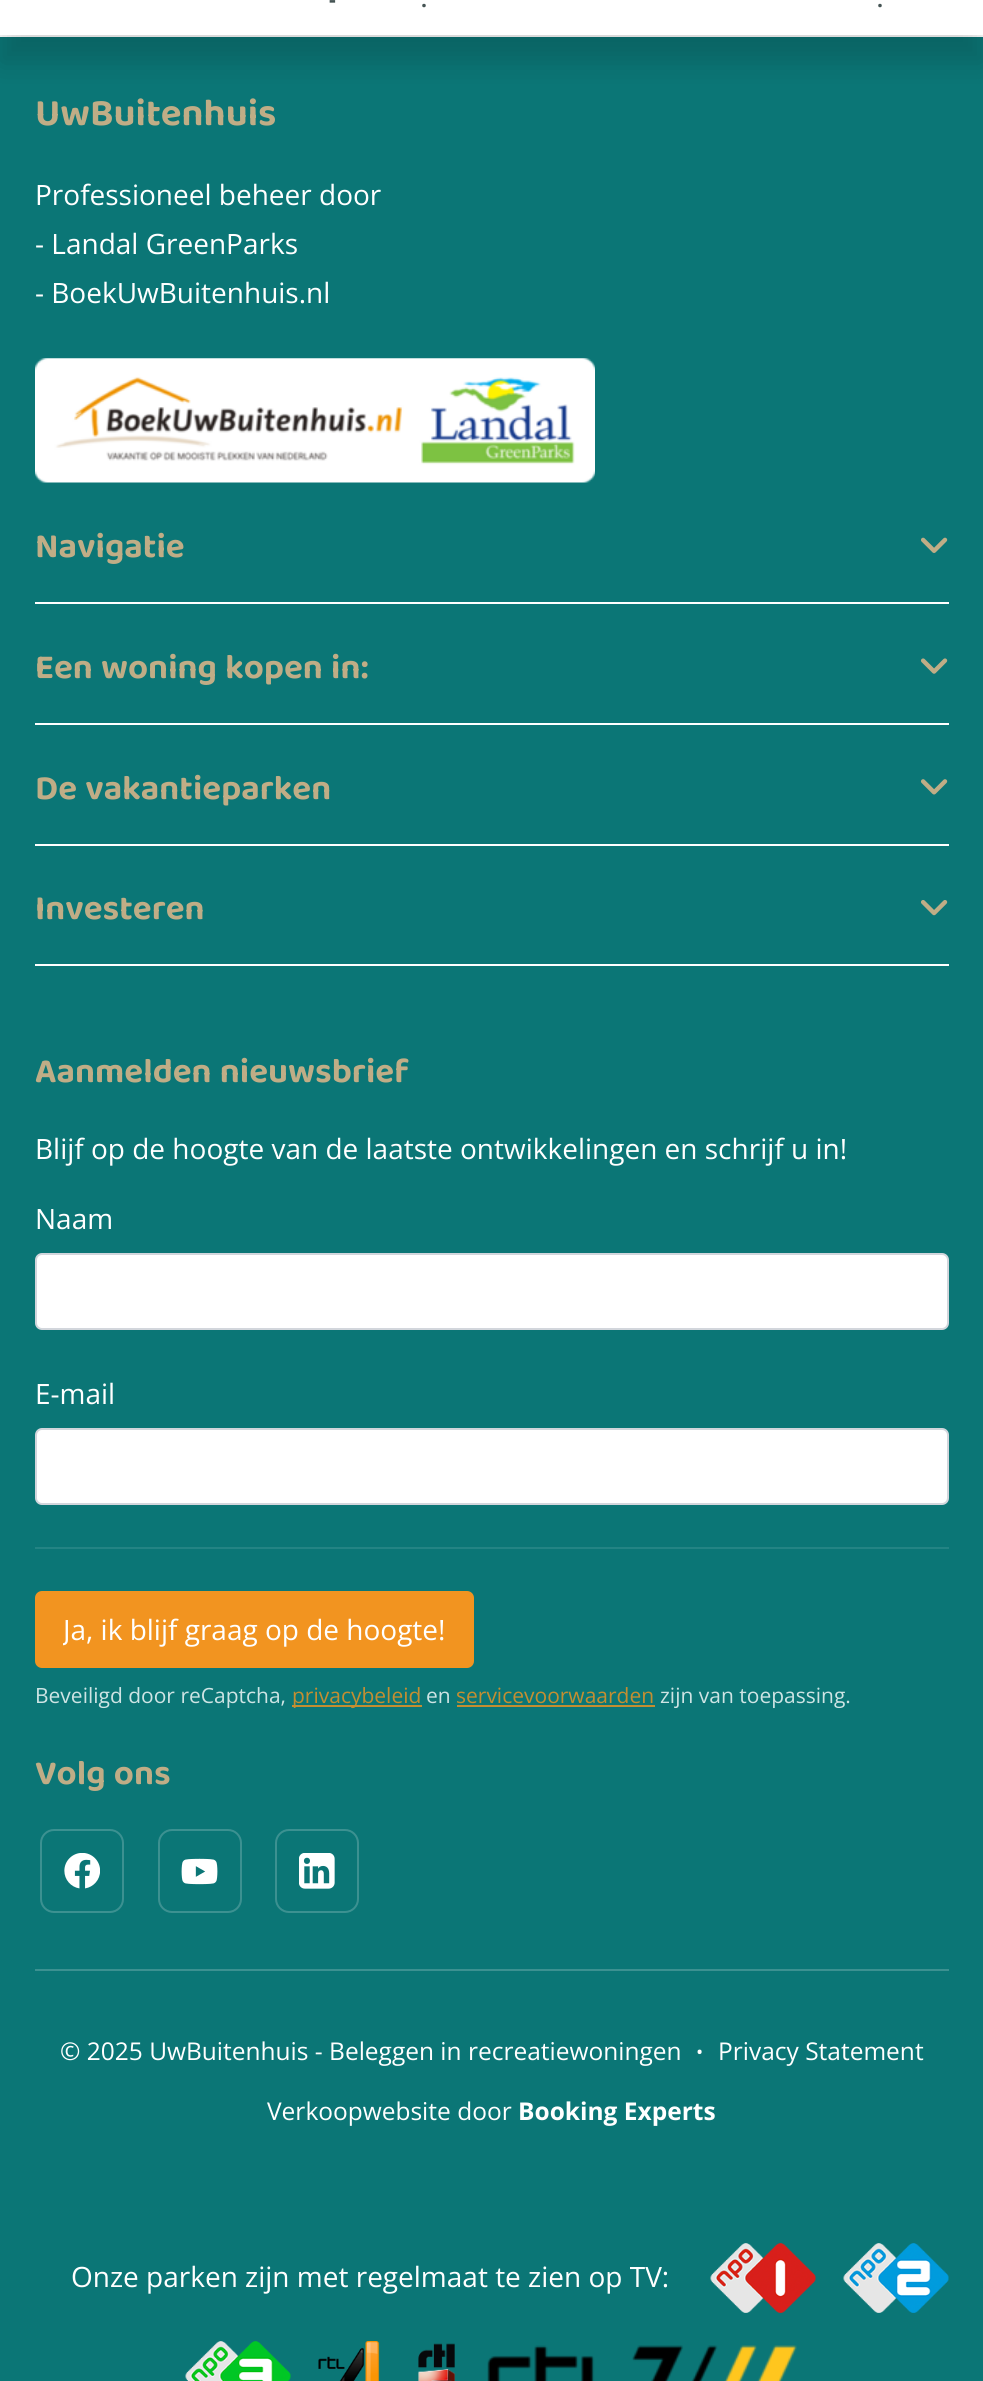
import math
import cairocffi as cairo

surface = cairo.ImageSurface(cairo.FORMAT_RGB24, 983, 2381)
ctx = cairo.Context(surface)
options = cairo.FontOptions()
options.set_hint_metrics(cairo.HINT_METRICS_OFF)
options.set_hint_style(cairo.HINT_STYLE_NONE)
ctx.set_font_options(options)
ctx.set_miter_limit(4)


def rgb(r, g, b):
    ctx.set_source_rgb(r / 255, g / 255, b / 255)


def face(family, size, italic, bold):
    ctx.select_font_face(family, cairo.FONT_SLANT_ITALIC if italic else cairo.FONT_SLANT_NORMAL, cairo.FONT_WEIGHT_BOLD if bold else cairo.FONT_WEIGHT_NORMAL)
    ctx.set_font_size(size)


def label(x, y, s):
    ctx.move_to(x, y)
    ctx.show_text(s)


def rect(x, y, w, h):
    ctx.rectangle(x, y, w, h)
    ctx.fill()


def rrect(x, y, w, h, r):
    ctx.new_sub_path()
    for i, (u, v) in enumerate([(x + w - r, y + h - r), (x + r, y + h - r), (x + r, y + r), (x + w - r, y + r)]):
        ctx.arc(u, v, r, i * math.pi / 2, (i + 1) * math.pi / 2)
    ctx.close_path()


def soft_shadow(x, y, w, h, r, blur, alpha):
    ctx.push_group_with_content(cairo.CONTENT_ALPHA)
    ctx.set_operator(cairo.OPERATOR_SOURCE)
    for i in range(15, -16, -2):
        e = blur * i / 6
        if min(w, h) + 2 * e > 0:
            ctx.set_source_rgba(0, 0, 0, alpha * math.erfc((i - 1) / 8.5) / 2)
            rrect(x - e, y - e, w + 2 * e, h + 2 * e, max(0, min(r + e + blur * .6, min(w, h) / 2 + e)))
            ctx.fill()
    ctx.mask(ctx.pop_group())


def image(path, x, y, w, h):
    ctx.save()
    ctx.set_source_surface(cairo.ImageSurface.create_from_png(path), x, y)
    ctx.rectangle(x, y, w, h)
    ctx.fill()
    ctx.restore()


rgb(255, 255, 255)
ctx.paint()
rgb(11, 118, 118)
rect(0, 37, 983, 2344)
rgb(0, 0, 0)
soft_shadow(0, -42, 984, 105, 0, 14, 0.15)
rgb(255, 255, 255)
rect(0, 0, 983, 35)
face('Open Sans', 21, 0, 1)
rgb(69, 84, 84)
label(329, 7, '-')
label(421, 7, '.')
label(877, 7, '.')
face('Baloo Tamma 2', 38.5, 0, 1)
rgb(192, 173, 134)
label(35, 125, 'UwBuitenhuis')
face('Open Sans', 28, 0, 0)
rgb(255, 255, 255)
label(35, 205, 'Professioneel beheer door')
label(35, 254, '- Landal GreenParks')
label(35, 303, '- BoekUwBuitenhuis.nl')
image('image0.png', 35, 358, 560, 125)
rect(35, 602, 914, 2)
face('Baloo Tamma 2', 35, 0, 1)
rgb(192, 173, 134)
label(35, 557, 'Navigatie')
image('image1.png', 921, 537, 27, 16)
rgb(255, 255, 255)
rect(35, 723, 914, 2)
rgb(192, 173, 134)
label(35, 678, 'Een woning kopen in:')
image('image2.png', 920, 658, 28, 16)
rgb(255, 255, 255)
rect(35, 844, 914, 2)
rgb(192, 173, 134)
label(35, 799, 'De vakantieparken')
image('image3.png', 920, 779, 28, 16)
rgb(255, 255, 255)
rect(35, 964, 914, 2)
rgb(192, 173, 134)
label(35, 919, 'Investeren')
image('image4.png', 921, 900, 27, 16)
label(35, 1082, 'Aanmelden nieuwsbrief')
face('Open Sans', 28, 0, 0)
rgb(255, 255, 255)
label(35, 1159, 'Blijf op de hoogte van de laatste ontwikkelingen en schrijf u in!')
label(35, 1229, 'Naam')
rrect(36, 1254, 912, 75, 6)
ctx.fill_preserve()
rgb(210, 214, 220)
ctx.stroke()
rgb(255, 255, 255)
label(35, 1404, 'E-mail')
rrect(36, 1429, 912, 75, 6)
ctx.fill_preserve()
rgb(210, 214, 220)
ctx.stroke()
rgb(35, 132, 132)
rect(35, 1547, 914, 2)
rgb(242, 148, 32)
rrect(35, 1591, 439, 77, 7)
ctx.fill()
ctx.save()
ctx.rectangle(63, 1608, 383, 42)
ctx.clip()
rgb(255, 255, 255)
label(63, 1640, 'Ja, ik blijf graag op de hoogte!')
ctx.restore()
face('Open Sans', 21, 0, 0)
rgb(206, 228, 228)
label(35, 1703, 'Beveiligd door reCaptcha,')
rgb(196, 142, 49)
rect(292, 1705, 130, 2)
label(292, 1703, 'privacybeleid')
rgb(206, 228, 228)
label(426, 1703, 'en')
rgb(196, 142, 49)
label(456, 1703, 'servicevoorwaarden')
rect(457, 1705, 198, 2)
rgb(206, 228, 228)
label(660, 1703, 'zijn van toepassing.')
face('Baloo Tamma 2', 35, 0, 1)
rgb(192, 173, 134)
label(35, 1784, 'Volg ons')
rrect(41, 1830, 82, 82, 13)
rgb(60, 145, 145)
ctx.stroke()
image('image5.png', 64, 1853, 36, 36)
rrect(159, 1830, 82, 82, 13)
ctx.stroke()
image('image6.png', 181, 1858, 37, 27)
rrect(276, 1830, 82, 82, 13)
ctx.stroke()
image('image7.png', 299, 1853, 36, 36)
rect(35, 1969, 914, 2)
face('Open Sans', 24.5, 0, 0)
rgb(255, 255, 255)
label(60, 2060, '© 2025 UwBuitenhuis - Beleggen in recreatiewoningen')
face('Open Sans', 35, 0, 0)
label(695, 2064, '·')
face('Open Sans', 24.5, 0, 0)
label(718, 2060, 'Privacy Statement')
label(267, 2120, 'Verkoopwebsite door')
face('Open Sans', 24.5, 0, 1)
label(518, 2120, 'Booking Experts')
face('Open Sans', 28, 0, 0)
label(71, 2287, 'Onze parken zijn met regelmaat te zien op TV:')
image('image8.png', 710, 2243, 106, 70)
image('image9.png', 843, 2243, 106, 70)
image('image10.png', 185, 2341, 106, 40)
image('image11.png', 318, 2341, 62, 40)
image('image12.png', 418, 2343, 37, 38)
image('image13.png', 487, 2345, 310, 36)
surface.write_to_png('render.png')
